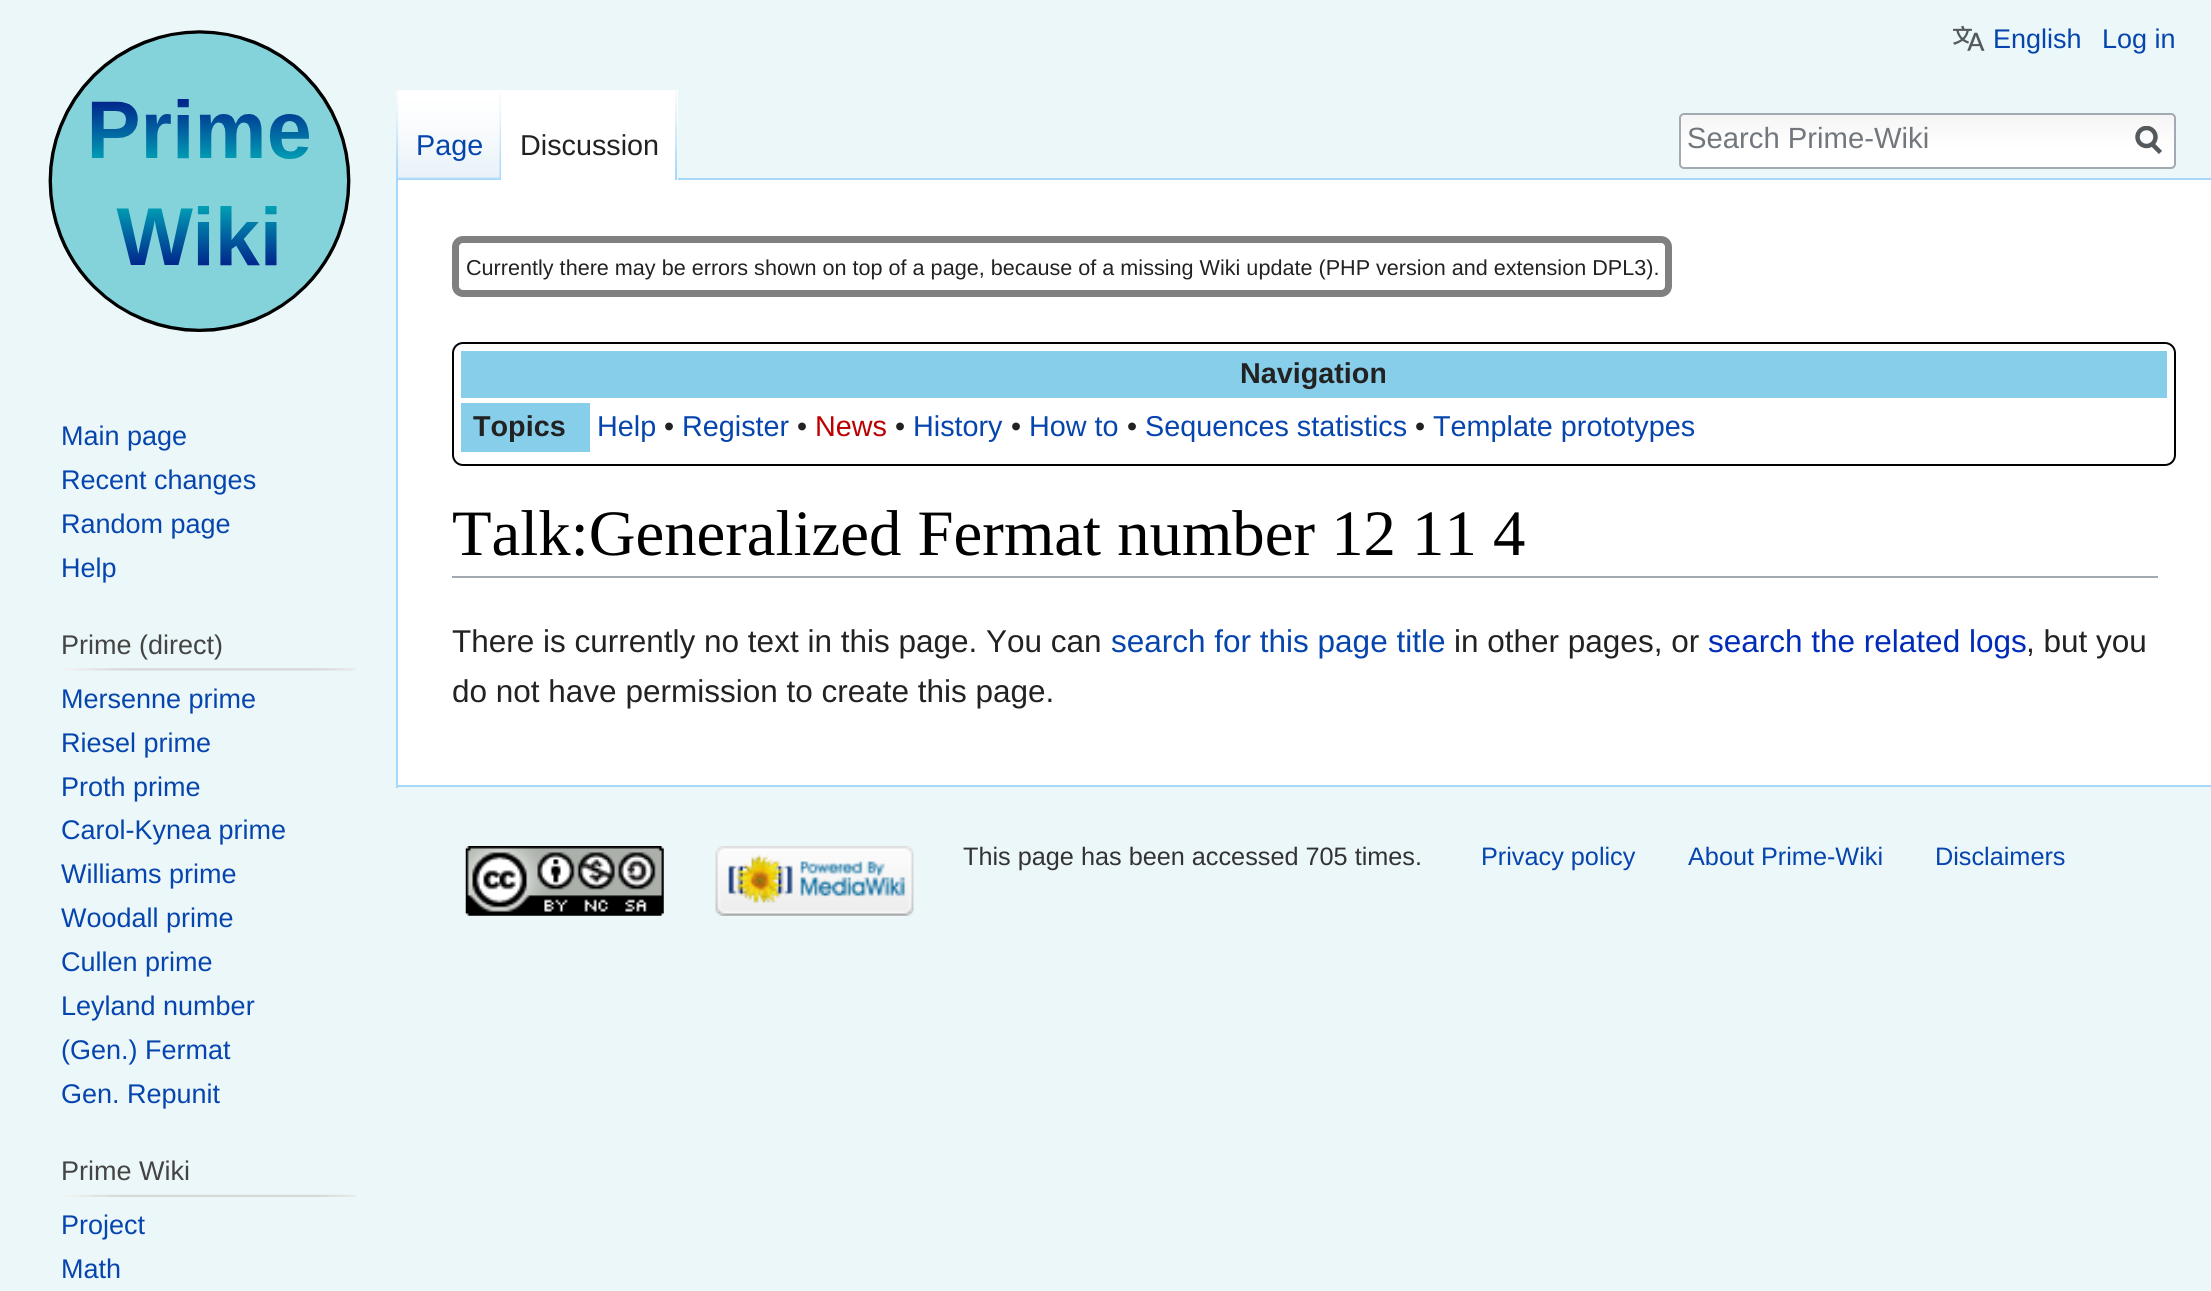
import math
import cairocffi as cairo

surface = cairo.ImageSurface(cairo.FORMAT_RGB24, 2211, 1291)
ctx = cairo.Context(surface)
options = cairo.FontOptions()
options.set_hint_metrics(cairo.HINT_METRICS_OFF)
options.set_hint_style(cairo.HINT_STYLE_NONE)
ctx.set_font_options(options)
ctx.set_miter_limit(4)


def rgb(r, g, b):
    ctx.set_source_rgb(r / 255, g / 255, b / 255)


def face(family, size, italic, bold):
    ctx.select_font_face(family, cairo.FONT_SLANT_ITALIC if italic else cairo.FONT_SLANT_NORMAL, cairo.FONT_WEIGHT_BOLD if bold else cairo.FONT_WEIGHT_NORMAL)
    ctx.set_font_size(size)


def label(x, y, s):
    ctx.move_to(x, y)
    ctx.show_text(s)


def rect(x, y, w, h):
    ctx.rectangle(x, y, w, h)
    ctx.fill()


def rrect(x, y, w, h, r):
    ctx.new_sub_path()
    for i, (u, v) in enumerate([(x + w - r, y + h - r), (x + r, y + h - r), (x + r, y + r), (x + w - r, y + r)]):
        ctx.arc(u, v, r, i * math.pi / 2, (i + 1) * math.pi / 2)
    ctx.close_path()


def image(path, x, y, w, h):
    ctx.save()
    ctx.set_source_surface(cairo.ImageSurface.create_from_png(path), x, y)
    ctx.rectangle(x, y, w, h)
    ctx.fill()
    ctx.restore()


rgb(235, 247, 249)
ctx.paint()
image('image0.png', 1953, 25, 32, 26)
face('Liberation Sans', 27, 0, 0)
rgb(6, 69, 173)
label(1993, 48, 'English')
label(2102, 48, 'Log in')
image('image1.png', 396, 90, 3, 88)
rgb(167, 215, 249)
rect(396, 178, 1815, 2)
image('image2.png', 398, 90, 102, 89)
image('image3.png', 499, 90, 2, 89)
face('Liberation Sans', 28.75, 0, 0)
rgb(6, 69, 173)
label(416, 155, 'Page')
rgb(255, 255, 255)
rect(501, 90, 177, 90)
image('image4.png', 675, 90, 3, 90)
rgb(34, 34, 34)
label(520, 155, 'Discussion')
rgb(255, 255, 255)
rrect(1679, 113, 497, 56, 5)
ctx.fill()
image('image5.png', 1678, 115, 498, 35)
rrect(1680, 114, 495, 54, 4)
rgb(162, 169, 177)
ctx.stroke()
face('Liberation Sans', 29.25, 0, 0)
rgb(114, 119, 125)
label(1687, 148, 'Search Prime-Wiki')
ctx.new_path()
ctx.move_to(2160.5, 152.5)
ctx.line_to(2151.5, 143.5)
rgb(84, 89, 93)
ctx.set_line_width(4.5)
ctx.stroke()
ctx.save()
ctx.rectangle(2135, 126, 27, 29)
ctx.clip()
ctx.arc(2146.5, 137, 9, 0, 2 * math.pi)
ctx.stroke()
ctx.restore()
image('image6.png', 48, 30, 303, 302)
face('Liberation Sans', 27, 0, 0)
rgb(6, 69, 173)
label(61, 445, 'Main page')
label(61, 489, 'Recent changes')
label(61, 533, 'Random page')
label(61, 577, 'Help')
rgb(68, 68, 68)
label(61, 654, 'Prime (direct)')
image('image7.png', 61, 668, 295, 3)
rgb(6, 69, 173)
label(61, 708, 'Mersenne prime')
label(61, 752, 'Riesel prime')
label(61, 796, 'Proth prime')
label(61, 839, 'Carol-Kynea prime')
label(61, 883, 'Williams prime')
label(61, 927, 'Woodall prime')
label(61, 971, 'Cullen prime')
label(61, 1015, 'Leyland number')
label(61, 1059, '(Gen.) Fermat')
label(61, 1103, 'Gen. Repunit')
rgb(68, 68, 68)
label(61, 1180, 'Prime Wiki')
image('image8.png', 61, 1194, 295, 3)
rgb(6, 69, 173)
label(61, 1234, 'Project')
label(61, 1278, 'Math')
rgb(255, 255, 255)
rect(398, 180, 1813, 605)
rgb(167, 215, 249)
rect(396, 785, 1815, 2)
rect(396, 178, 2, 610)
rrect(455.5, 239.5, 1213, 54, 7.5)
rgb(128, 128, 128)
ctx.set_line_width(7)
ctx.stroke()
face('Liberation Sans', 21.6, 0, 0)
rgb(34, 34, 34)
label(466, 275, 'Currently there may be errors shown on top of a page, because of a missing Wiki update (PHP version and extension DPL3).')
rrect(453, 343, 1722, 122, 10)
rgb(0, 0, 0)
ctx.set_line_width(2)
ctx.stroke()
rgb(135, 206, 235)
rect(461, 351, 1706, 47)
face('Liberation Sans', 28.75, 0, 1)
rgb(34, 34, 34)
label(1240, 383, 'Navigation')
rgb(135, 206, 235)
rect(461, 403, 129, 49)
rgb(34, 34, 34)
label(473, 436, 'Topics')
face('Liberation Sans', 28.75, 0, 0)
rgb(6, 69, 173)
label(597, 436, 'Help')
rgb(34, 34, 34)
label(664, 436, '•')
rgb(6, 69, 173)
label(682, 436, 'Register')
rgb(34, 34, 34)
label(797, 436, '•')
rgb(186, 0, 0)
label(815, 436, 'News')
rgb(34, 34, 34)
label(895, 436, '•')
rgb(6, 69, 173)
label(913, 436, 'History')
rgb(34, 34, 34)
label(1011, 436, '•')
rgb(6, 69, 173)
label(1029, 436, 'How to')
rgb(34, 34, 34)
label(1127, 436, '•')
rgb(6, 69, 173)
label(1145, 436, 'Sequences statistics')
rgb(34, 34, 34)
label(1415, 436, '•')
rgb(6, 69, 173)
label(1433, 436, 'Template prototypes')
rgb(162, 169, 177)
rect(452, 576, 1706, 2)
face('Liberation Serif', 64.75, 0, 0)
rgb(0, 0, 0)
label(452, 555, 'Talk:Generalized Fermat number 12 11 4')
face('Liberation Sans', 31.5, 0, 0)
rgb(34, 34, 34)
label(452, 652, 'There is currently no text in this page. You can')
rgb(6, 69, 173)
label(1111, 652, 'search for this page title')
rgb(34, 34, 34)
label(1454, 652, 'in other pages, or')
rgb(0, 43, 184)
label(1708, 652, 'search the related logs')
rgb(34, 34, 34)
label(2026, 652, ', but you')
label(452, 702, 'do not have permission to create this page.')
image('image9.png', 465, 846, 199, 70)
image('image10.png', 715, 846, 199, 70)
face('Liberation Sans', 25.25, 0, 0)
rgb(51, 51, 51)
label(963, 865, 'This page has been accessed 705 times.')
rgb(6, 69, 173)
label(1481, 865, 'Privacy policy')
label(1688, 865, 'About Prime-Wiki')
label(1935, 865, 'Disclaimers')
surface.write_to_png('render.png')
